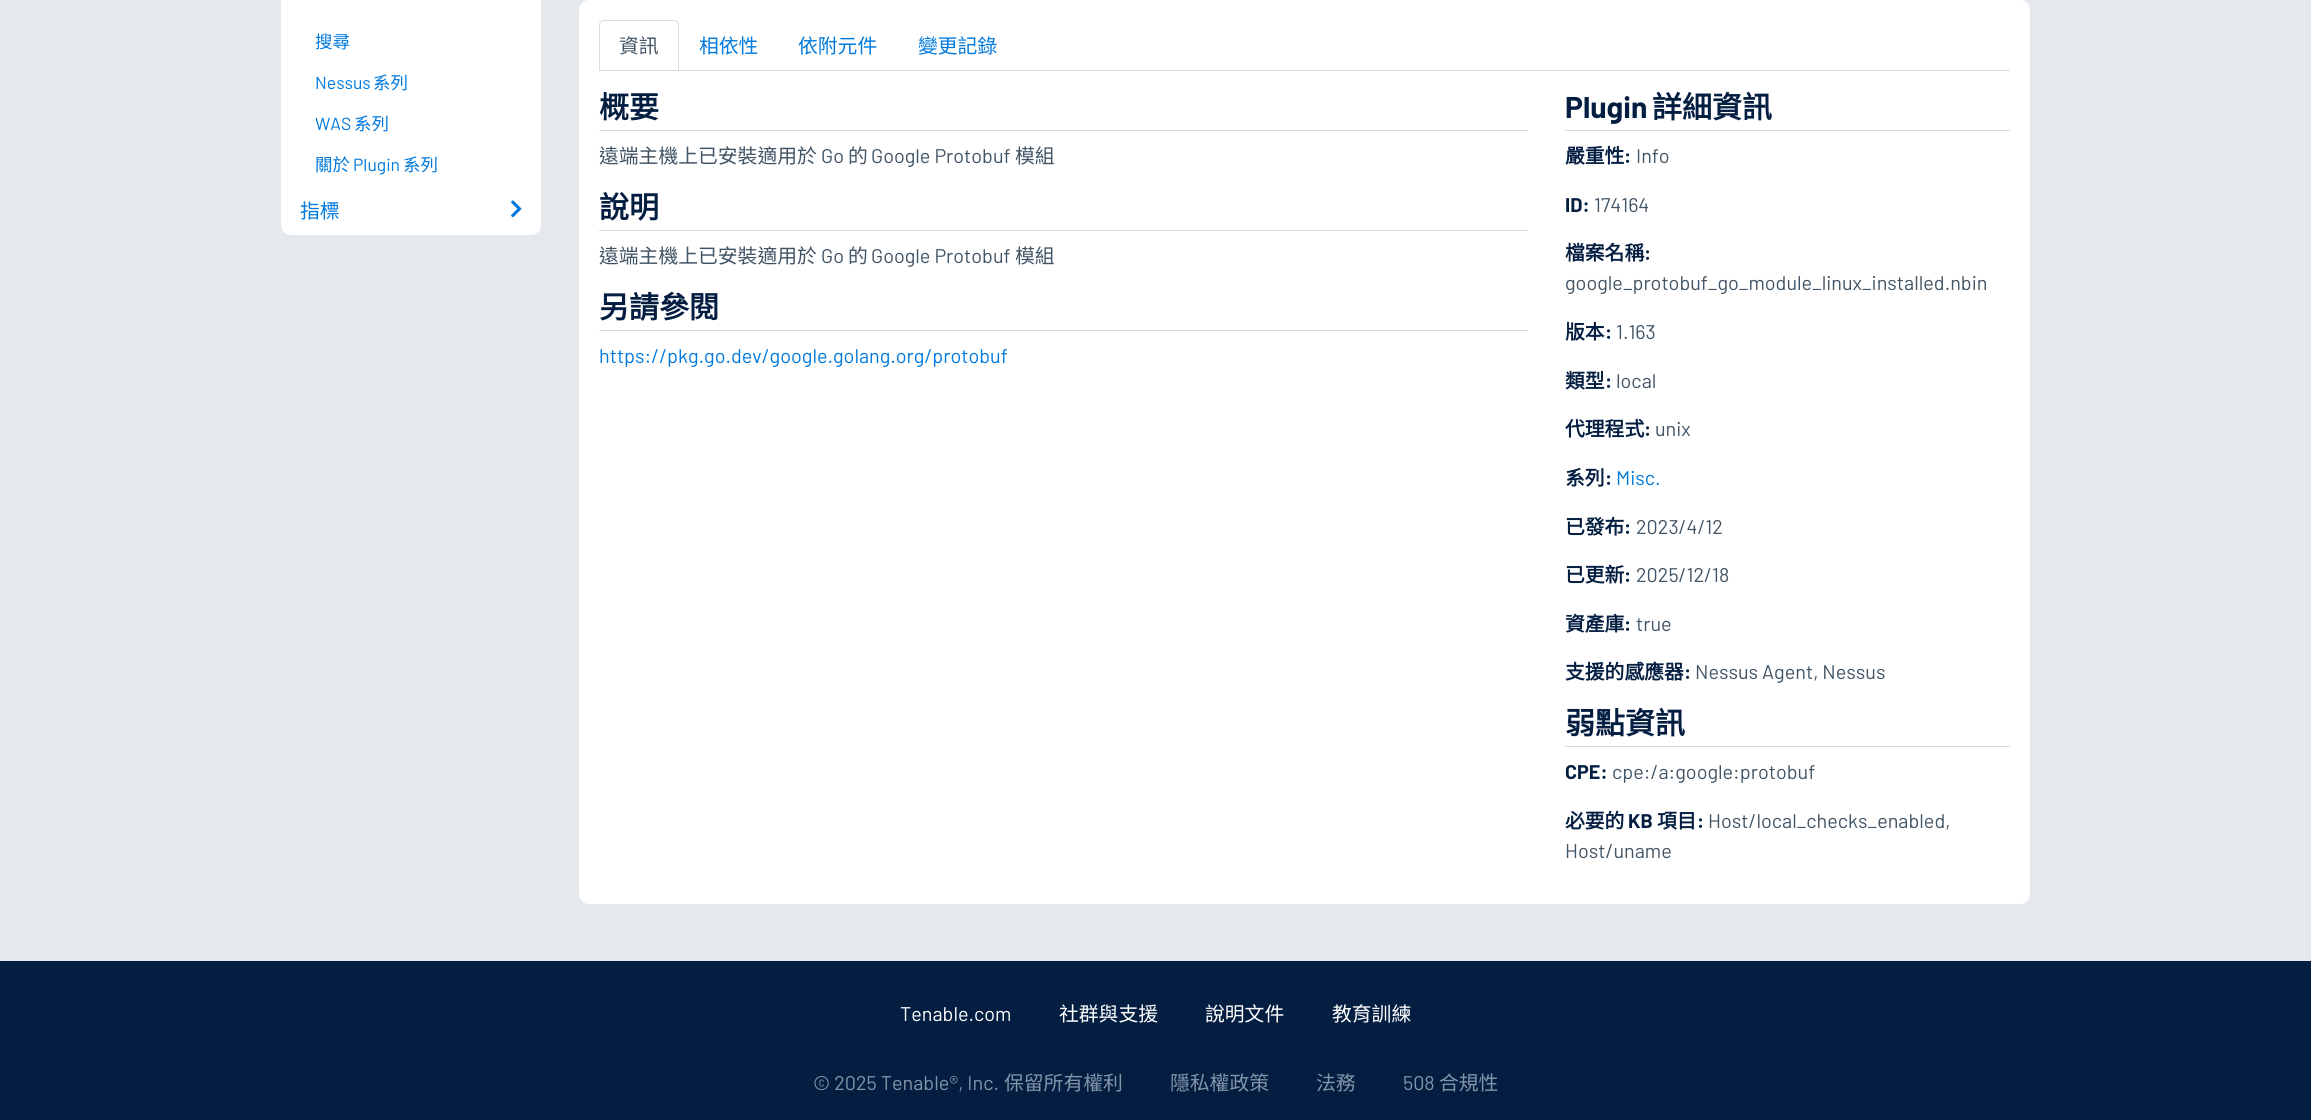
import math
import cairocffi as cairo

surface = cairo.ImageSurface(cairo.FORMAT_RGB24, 2311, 1120)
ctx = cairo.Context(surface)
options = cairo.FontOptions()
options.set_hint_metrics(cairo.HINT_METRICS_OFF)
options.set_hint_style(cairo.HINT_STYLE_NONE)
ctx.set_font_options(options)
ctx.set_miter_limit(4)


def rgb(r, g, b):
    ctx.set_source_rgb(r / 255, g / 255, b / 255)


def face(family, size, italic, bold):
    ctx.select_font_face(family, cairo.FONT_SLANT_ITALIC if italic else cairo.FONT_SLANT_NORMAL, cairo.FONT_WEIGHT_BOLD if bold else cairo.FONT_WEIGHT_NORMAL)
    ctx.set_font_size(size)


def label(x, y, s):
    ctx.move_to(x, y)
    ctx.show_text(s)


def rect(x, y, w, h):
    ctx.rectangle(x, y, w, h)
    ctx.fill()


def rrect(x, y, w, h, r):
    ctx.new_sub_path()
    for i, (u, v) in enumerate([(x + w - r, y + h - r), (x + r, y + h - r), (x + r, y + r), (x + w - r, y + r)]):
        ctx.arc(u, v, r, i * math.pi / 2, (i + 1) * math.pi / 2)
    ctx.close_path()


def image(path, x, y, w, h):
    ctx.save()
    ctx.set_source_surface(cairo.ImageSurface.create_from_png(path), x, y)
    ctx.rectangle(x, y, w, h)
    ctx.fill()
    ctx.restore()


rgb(229, 233, 237)
ctx.paint()
rgb(255, 255, 255)
rrect(281, -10, 260, 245, 10)
ctx.fill()
face('Noto Sans CJK TC', 17.5, 0, 0)
rgb(0, 121, 221)
label(315, 48, '搜尋')
face('Barlow', 17.5, 0, 0)
label(315, 89, 'Nessus')
face('Noto Sans CJK TC', 17.5, 0, 0)
label(373, 89, '系列')
face('Barlow', 17.5, 0, 0)
label(315, 130, 'WAS')
face('Noto Sans CJK TC', 17.5, 0, 0)
label(354, 130, '系列')
label(315, 171, '關於')
face('Barlow', 17.5, 0, 0)
label(353, 171, 'Plugin')
face('Noto Sans CJK TC', 17.5, 0, 0)
label(403, 171, '系列')
face('Noto Sans CJK TC', 19.8, 0, 0)
label(300, 218, '指標')
image('image0.png', 511, 200, 11, 18)
rgb(255, 255, 255)
rrect(579.5, 0.5, 1450, 903, 9.5)
ctx.fill_preserve()
ctx.set_line_width(1)
ctx.stroke()
rgb(217, 219, 224)
rect(679, 70, 1331, 1)
ctx.new_path()
ctx.move_to(604, 20.5)
ctx.line_to(674, 20.5)
ctx.curve_to(676.5, 20.5, 678.5, 22.5, 678.5, 25)
ctx.line_to(678.5, 70.5)
ctx.line_to(599.5, 70.5)
ctx.line_to(599.5, 25)
ctx.curve_to(599.5, 22.5, 601.5, 20.5, 604, 20.5)
ctx.close_path()
ctx.stroke()
rgb(65, 84, 101)
label(619, 53, '資訊')
rgb(0, 121, 221)
label(699, 53, '相依性')
label(798, 53, '依附元件')
label(918, 53, '變更記錄')
rgb(217, 219, 224)
rect(599, 130, 929, 1)
face('Noto Sans CJK TC', 30, 0, 1)
rgb(4, 30, 66)
label(599, 118, '概要')
face('Noto Sans CJK TC', 19.8, 0, 0)
rgb(65, 84, 101)
label(599, 163, '遠端主機上已安裝適用於')
face('Barlow', 19.8, 0, 0)
label(821, 163, 'Go')
face('Noto Sans CJK TC', 19.8, 0, 0)
label(848, 163, '的')
face('Barlow', 19.8, 0, 0)
label(871, 163, 'Google Protobuf')
face('Noto Sans CJK TC', 19.8, 0, 0)
label(1015, 163, '模組')
rgb(217, 219, 224)
rect(599, 230, 929, 1)
face('Noto Sans CJK TC', 30, 0, 1)
rgb(4, 30, 66)
label(599, 218, '說明')
face('Noto Sans CJK TC', 19.8, 0, 0)
rgb(65, 84, 101)
label(599, 263, '遠端主機上已安裝適用於')
face('Barlow', 19.8, 0, 0)
label(821, 263, 'Go')
face('Noto Sans CJK TC', 19.8, 0, 0)
label(848, 263, '的')
face('Barlow', 19.8, 0, 0)
label(871, 263, 'Google Protobuf')
face('Noto Sans CJK TC', 19.8, 0, 0)
label(1015, 263, '模組')
rgb(217, 219, 224)
rect(599, 330, 929, 1)
face('Noto Sans CJK TC', 30, 0, 1)
rgb(4, 30, 66)
label(599, 318, '另請參閱')
face('Barlow', 19.8, 0, 0)
rgb(0, 121, 221)
label(599, 363, 'https://pkg.go.dev/google.golang.org/protobuf')
rgb(217, 219, 224)
rect(1565, 130, 445, 1)
face('Barlow', 30, 0, 1)
rgb(4, 30, 66)
label(1565, 118, 'Plugin')
face('Noto Sans CJK TC', 30, 0, 1)
label(1652, 118, '詳細資訊')
face('Noto Sans CJK TC', 19.8, 0, 1)
label(1565, 163, '嚴重性')
face('Barlow', 19.8, 0, 1)
label(1624, 163, ':')
face('Barlow', 19.8, 0, 0)
rgb(65, 84, 101)
label(1636, 163, 'Info')
face('Barlow', 19.8, 0, 1)
rgb(4, 30, 66)
label(1565, 212, 'ID:')
face('Barlow', 19.8, 0, 0)
rgb(65, 84, 101)
label(1594, 212, '174164')
face('Noto Sans CJK TC', 19.8, 0, 1)
rgb(4, 30, 66)
label(1565, 260, '檔案名稱')
face('Barlow', 19.8, 0, 1)
label(1644, 260, ':')
face('Barlow', 19.8, 0, 0)
rgb(65, 84, 101)
label(1565, 290, 'google_protobuf_go_module_linux_installed.nbin')
face('Noto Sans CJK TC', 19.8, 0, 1)
rgb(4, 30, 66)
label(1565, 339, '版本')
face('Barlow', 19.8, 0, 1)
label(1605, 339, ':')
face('Barlow', 19.8, 0, 0)
rgb(65, 84, 101)
label(1616, 339, '1.163')
face('Noto Sans CJK TC', 19.8, 0, 1)
rgb(4, 30, 66)
label(1565, 388, '類型')
face('Barlow', 19.8, 0, 1)
label(1605, 388, ':')
face('Barlow', 19.8, 0, 0)
rgb(65, 84, 101)
label(1616, 388, 'local')
face('Noto Sans CJK TC', 19.8, 0, 1)
rgb(4, 30, 66)
label(1565, 436, '代理程式')
face('Barlow', 19.8, 0, 1)
label(1644, 436, ':')
face('Barlow', 19.8, 0, 0)
rgb(65, 84, 101)
label(1655, 436, 'unix')
face('Noto Sans CJK TC', 19.8, 0, 1)
rgb(4, 30, 66)
label(1565, 485, '系列')
face('Barlow', 19.8, 0, 1)
label(1605, 485, ':')
face('Barlow', 19.8, 0, 0)
rgb(0, 121, 221)
label(1616, 485, 'Misc.')
face('Noto Sans CJK TC', 19.8, 0, 1)
rgb(4, 30, 66)
label(1565, 534, '已發布')
face('Barlow', 19.8, 0, 1)
label(1624, 534, ':')
face('Barlow', 19.8, 0, 0)
rgb(65, 84, 101)
label(1636, 534, '2023/4/12')
face('Noto Sans CJK TC', 19.8, 0, 1)
rgb(4, 30, 66)
label(1565, 582, '已更新')
face('Barlow', 19.8, 0, 1)
label(1624, 582, ':')
face('Barlow', 19.8, 0, 0)
rgb(65, 84, 101)
label(1636, 582, '2025/12/18')
face('Noto Sans CJK TC', 19.8, 0, 1)
rgb(4, 30, 66)
label(1565, 631, '資產庫')
face('Barlow', 19.8, 0, 1)
label(1624, 631, ':')
face('Barlow', 19.8, 0, 0)
rgb(65, 84, 101)
label(1636, 631, 'true')
face('Noto Sans CJK TC', 19.8, 0, 1)
rgb(4, 30, 66)
label(1565, 679, '支援的感應器')
face('Barlow', 19.8, 0, 1)
label(1684, 679, ':')
face('Barlow', 19.8, 0, 0)
rgb(65, 84, 101)
label(1695, 679, 'Nessus Agent, Nessus')
rgb(217, 219, 224)
rect(1565, 746, 445, 1)
face('Noto Sans CJK TC', 30, 0, 1)
rgb(4, 30, 66)
label(1565, 734, '弱點資訊')
face('Barlow', 19.8, 0, 1)
label(1565, 779, 'CPE:')
face('Barlow', 19.8, 0, 0)
rgb(65, 84, 101)
label(1612, 779, 'cpe:/a:google:protobuf')
face('Noto Sans CJK TC', 19.8, 0, 1)
rgb(4, 30, 66)
label(1565, 828, '必要的')
face('Barlow', 19.8, 0, 1)
label(1628, 828, 'KB')
face('Noto Sans CJK TC', 19.8, 0, 1)
label(1657, 828, '項目')
face('Barlow', 19.8, 0, 1)
label(1697, 828, ':')
face('Barlow', 19.8, 0, 0)
rgb(65, 84, 101)
label(1708, 828, 'Host/local_checks_enabled,')
label(1565, 858, 'Host/uname')
rgb(4, 30, 66)
rect(0, 961, 2311, 159)
rgb(255, 255, 255)
label(900, 1021, 'Tenable.com')
face('Noto Sans CJK TC', 19.8, 0, 0)
label(1059, 1021, '社群與支援')
label(1205, 1021, '說明文件')
label(1332, 1021, '教育訓練')
face('Barlow', 19.8, 0, 0)
rgb(130, 148, 168)
label(813, 1090, '© 2025 Tenable®, Inc.')
face('Noto Sans CJK TC', 19.8, 0, 0)
label(1004, 1090, '保留所有權利')
label(1170, 1090, '隱私權政策')
label(1316, 1090, '法務')
face('Barlow', 19.8, 0, 0)
label(1403, 1090, '508')
face('Noto Sans CJK TC', 19.8, 0, 0)
label(1439, 1090, '合規性')
surface.write_to_png('render.png')
